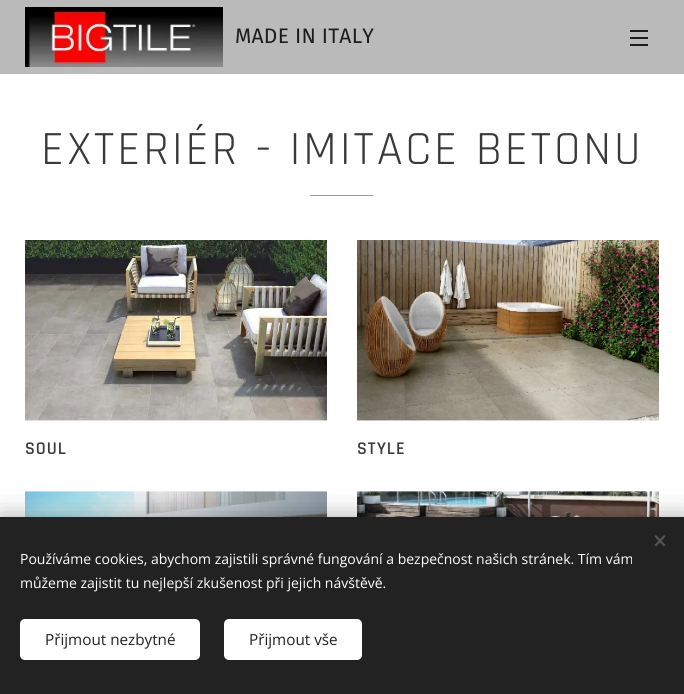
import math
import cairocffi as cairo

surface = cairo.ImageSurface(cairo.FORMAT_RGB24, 684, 694)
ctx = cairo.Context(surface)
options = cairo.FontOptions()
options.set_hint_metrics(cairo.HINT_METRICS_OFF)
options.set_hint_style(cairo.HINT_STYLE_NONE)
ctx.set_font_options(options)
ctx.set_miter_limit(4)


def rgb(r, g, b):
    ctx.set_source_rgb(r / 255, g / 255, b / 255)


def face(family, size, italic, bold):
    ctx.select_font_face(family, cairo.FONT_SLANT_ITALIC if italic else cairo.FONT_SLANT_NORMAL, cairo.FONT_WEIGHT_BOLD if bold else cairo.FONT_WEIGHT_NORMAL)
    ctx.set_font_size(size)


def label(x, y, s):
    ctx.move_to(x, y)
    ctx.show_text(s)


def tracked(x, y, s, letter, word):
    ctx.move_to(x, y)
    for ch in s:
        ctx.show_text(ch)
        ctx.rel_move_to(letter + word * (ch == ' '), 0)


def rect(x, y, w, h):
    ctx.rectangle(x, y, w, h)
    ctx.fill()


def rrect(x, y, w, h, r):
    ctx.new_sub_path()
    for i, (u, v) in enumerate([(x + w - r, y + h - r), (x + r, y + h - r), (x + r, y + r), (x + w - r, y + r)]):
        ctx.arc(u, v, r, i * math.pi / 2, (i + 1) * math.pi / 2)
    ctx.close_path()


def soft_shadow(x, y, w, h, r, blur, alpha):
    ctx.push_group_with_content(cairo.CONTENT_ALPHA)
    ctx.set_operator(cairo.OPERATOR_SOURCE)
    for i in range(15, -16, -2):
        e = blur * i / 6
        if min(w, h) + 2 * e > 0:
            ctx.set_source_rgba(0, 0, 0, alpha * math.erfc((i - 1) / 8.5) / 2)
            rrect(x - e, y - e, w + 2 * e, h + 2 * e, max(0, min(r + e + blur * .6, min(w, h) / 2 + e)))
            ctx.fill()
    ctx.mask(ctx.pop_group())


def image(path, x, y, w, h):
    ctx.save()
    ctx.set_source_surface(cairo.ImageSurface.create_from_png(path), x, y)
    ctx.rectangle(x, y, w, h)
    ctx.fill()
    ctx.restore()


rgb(255, 255, 255)
ctx.paint()
rgb(186, 186, 186)
rect(0, 0, 684, 74)
image('image0.png', 25, 7, 198, 60)
face('Fira Sans', 21, 0, 0)
rgb(28, 28, 28)
tracked(235, 43, 'MADE IN ITALY', 0.25, 0)
rect(630, 37, 18, 2)
rect(630, 30, 18, 2)
rect(630, 44, 18, 2)
face('Rajdhani', 48, 0, 0)
rgb(57, 57, 57)
tracked(41, 164, 'EXTERIÉR - IMITACE BETONU', 2.9, 0)
rgb(157, 157, 157)
rect(310, 195, 63, 1)
image('image1.png', 25, 240, 302, 181)
face('Rajdhani SemiBold', 18, 0, 0)
rgb(57, 57, 57)
tracked(25, 454, 'SOUL', 1, 0)
image('image2.png', 357, 240, 302, 181)
tracked(357, 454, 'STYLE', 1, 0)
image('image3.png', 25, 491, 302, 26)
image('image4.png', 357, 491, 302, 26)
rgb(0, 0, 0)
soft_shadow(0, 517, 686, 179, 0, 12.5, 0.33)
rgb(34, 34, 34)
rect(0, 517, 684, 177)
rgb(85, 85, 85)
ctx.new_path()
ctx.move_to(654.5, 545)
ctx.line_to(664, 535)
ctx.line_to(665.5, 536.5)
ctx.line_to(656, 546.5)
ctx.close_path()
ctx.fill()
ctx.new_path()
ctx.move_to(656, 535)
ctx.line_to(665.5, 545)
ctx.line_to(664, 546.5)
ctx.line_to(654.5, 536.5)
ctx.close_path()
ctx.fill()
face('Open Sans', 14, 0, 0)
rgb(255, 255, 255)
label(20, 564, 'Používáme cookies, abychom zajistili správné fungování a bezpečnost našich stránek. Tím vám')
label(20, 588, 'můžeme zajistit tu nejlepší zkušenost při jejich návštěvě.')
rrect(20, 619, 180, 41, 5)
ctx.fill()
face('Open Sans', 15.25, 0, 0)
rgb(34, 34, 34)
label(45, 645, 'Přijmout nezbytné')
rgb(255, 255, 255)
rrect(224, 619, 138, 41, 5)
ctx.fill()
rgb(34, 34, 34)
label(249, 645, 'Přijmout vše')
surface.write_to_png('render.png')
